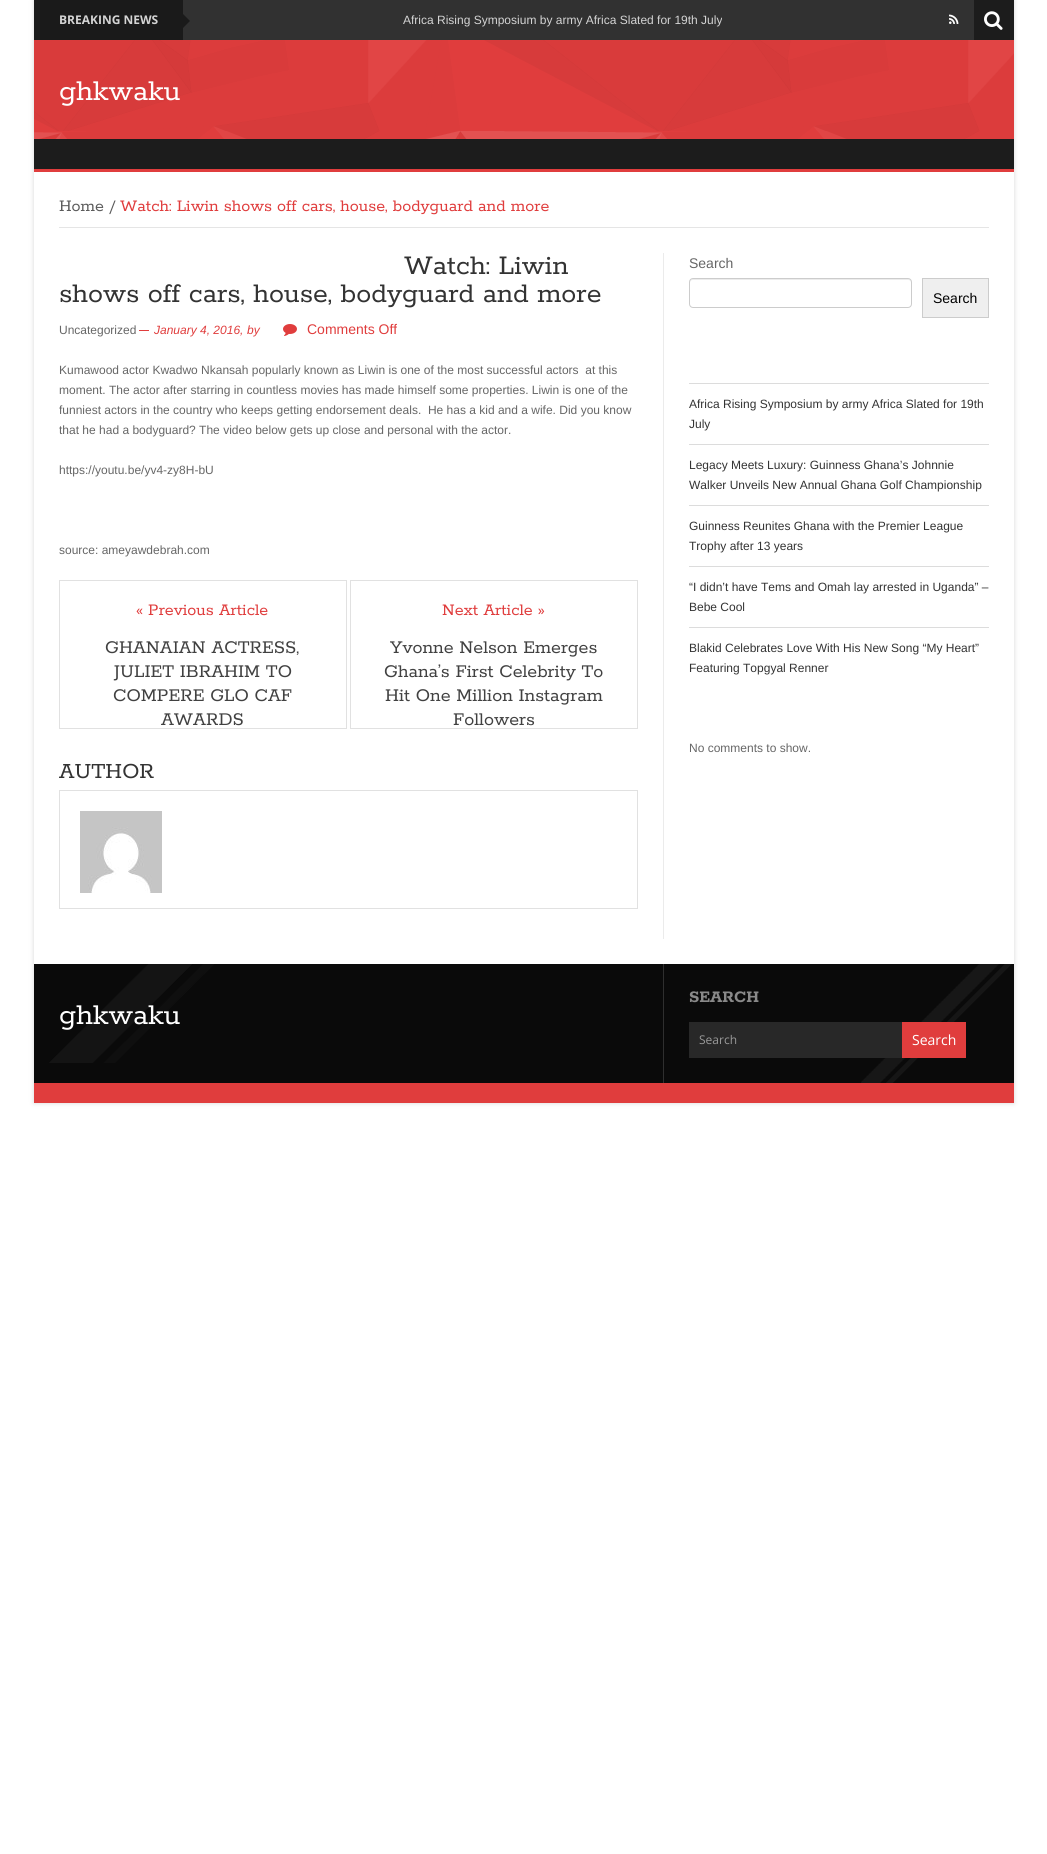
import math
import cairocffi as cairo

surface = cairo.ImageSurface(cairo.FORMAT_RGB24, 1047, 1854)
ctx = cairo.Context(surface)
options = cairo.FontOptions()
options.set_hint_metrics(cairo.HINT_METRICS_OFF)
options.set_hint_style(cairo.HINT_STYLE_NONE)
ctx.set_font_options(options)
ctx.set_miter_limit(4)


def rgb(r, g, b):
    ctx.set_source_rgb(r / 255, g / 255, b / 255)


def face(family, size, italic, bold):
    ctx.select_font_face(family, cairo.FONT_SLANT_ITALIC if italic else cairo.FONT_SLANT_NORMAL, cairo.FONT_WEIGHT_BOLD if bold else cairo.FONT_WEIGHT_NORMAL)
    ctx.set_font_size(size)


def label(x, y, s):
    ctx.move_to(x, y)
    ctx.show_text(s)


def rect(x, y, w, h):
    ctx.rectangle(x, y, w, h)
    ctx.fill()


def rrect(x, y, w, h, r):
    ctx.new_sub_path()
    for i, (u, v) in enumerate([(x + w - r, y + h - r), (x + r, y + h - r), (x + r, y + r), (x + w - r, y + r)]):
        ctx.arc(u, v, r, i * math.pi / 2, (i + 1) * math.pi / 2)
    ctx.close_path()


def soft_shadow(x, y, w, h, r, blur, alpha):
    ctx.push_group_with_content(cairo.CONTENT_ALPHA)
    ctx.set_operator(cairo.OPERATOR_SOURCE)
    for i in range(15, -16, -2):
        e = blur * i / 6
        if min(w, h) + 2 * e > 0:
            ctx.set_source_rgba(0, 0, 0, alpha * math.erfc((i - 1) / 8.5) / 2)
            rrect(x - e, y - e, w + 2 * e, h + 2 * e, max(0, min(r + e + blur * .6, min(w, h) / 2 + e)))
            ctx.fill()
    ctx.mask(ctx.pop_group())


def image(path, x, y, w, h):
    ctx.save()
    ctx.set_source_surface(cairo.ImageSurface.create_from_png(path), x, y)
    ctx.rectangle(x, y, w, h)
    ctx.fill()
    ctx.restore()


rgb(255, 255, 255)
ctx.paint()
ctx.save()
ctx.set_fill_rule(cairo.FILL_RULE_EVEN_ODD)
ctx.new_path()
ctx.move_to(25, 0)
ctx.line_to(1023, 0)
ctx.line_to(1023, 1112)
ctx.line_to(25, 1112)
ctx.close_path()
ctx.move_to(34, 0)
ctx.line_to(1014, 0)
ctx.line_to(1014, 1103)
ctx.line_to(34, 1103)
ctx.close_path()
ctx.clip()
rgb(202, 202, 202)
soft_shadow(34, 0, 980, 1103, 0, 2.5, 0.75)
ctx.restore()
rgb(49, 49, 49)
rect(183, 0, 791, 40)
rgb(26, 26, 26)
rect(34, 0, 149, 40)
face('Open Sans', 12, 0, 1)
rgb(212, 212, 212)
label(59, 24, 'BREAKING NEWS')
rgb(26, 26, 26)
ctx.new_path()
ctx.move_to(183, 28)
ctx.line_to(183, 14)
ctx.line_to(190, 21)
ctx.close_path()
ctx.fill()
face('Liberation Sans', 12, 0, 0)
rgb(212, 212, 212)
label(403, 24, 'Africa Rising Symposium by army Africa Slated for 19th July')
image('image0.png', 949, 14, 10, 10)
rgb(28, 28, 28)
rect(974, 0, 40, 40)
image('image1.png', 984, 11, 19, 19)
rgb(224, 61, 61)
rect(34, 40, 980, 99)
image('image2.png', 34, 40, 980, 99)
face('Rokkitt', 32, 0, 0)
rgb(255, 255, 255)
label(59, 100, 'ghkwaku')
rgb(28, 28, 28)
rect(34, 139, 980, 30)
rgb(224, 61, 61)
rect(34, 169, 980, 3)
rgb(229, 229, 229)
rect(59, 227, 930, 1)
face('Rokkitt', 18, 0, 0)
rgb(91, 91, 91)
label(59, 211, 'Home /')
rgb(224, 61, 61)
label(120, 211, 'Watch: Liwin shows off cars, house, bodyguard and more')
rgb(235, 235, 235)
rect(663, 253, 1, 686)
face('Rokkitt', 30, 0, 0)
rgb(51, 51, 51)
label(404, 274, 'Watch: Liwin')
label(59, 302, 'shows off cars, house, bodyguard and more')
face('Liberation Sans', 12, 0, 0)
rgb(102, 102, 102)
label(59, 334, 'Uncategorized')
rgb(224, 61, 61)
rect(139, 330, 10, 1)
face('Liberation Sans', 12, 1, 0)
label(154, 334, 'January 4, 2016,')
label(247, 334, 'by')
image('image3.png', 283, 324, 14, 12)
face('Liberation Sans', 14, 0, 0)
label(307, 334, 'Comments Off')
face('Liberation Sans', 12, 0, 0)
rgb(102, 102, 102)
label(59, 374, 'Kumawood actor Kwadwo Nkansah popularly known as Liwin is one of the most successful actors  at this')
label(59, 394, 'moment. The actor after starring in countless movies has made himself some properties. Liwin is one of the')
label(59, 414, 'funniest actors in the country who keeps getting endorsement deals.  He has a kid and a wife. Did you know')
label(59, 434, 'that he had a bodyguard? The video below gets up close and personal with the actor.')
label(59, 474, 'https://youtu.be/yv4-zy8H-bU')
label(59, 554, 'source: ameyawdebrah.com')
ctx.rectangle(59.5, 580.5, 287, 148)
rgb(225, 225, 225)
ctx.set_line_width(1)
ctx.stroke()
face('Rokkitt', 18, 0, 0)
rgb(224, 61, 61)
label(136, 615, '« Previous Article')
face('Rokkitt', 20, 0, 0)
rgb(65, 65, 65)
label(105, 653, 'GHANAIAN ACTRESS,')
label(114, 677, 'JULIET IBRAHIM TO')
label(113, 701, 'COMPERE GLO CAF')
label(161, 725, 'AWARDS')
ctx.rectangle(350.5, 580.5, 287, 148)
rgb(225, 225, 225)
ctx.stroke()
face('Rokkitt', 18, 0, 0)
rgb(224, 61, 61)
label(442, 615, 'Next Article »')
face('Rokkitt', 20, 0, 0)
rgb(65, 65, 65)
label(390, 653, 'Yvonne Nelson Emerges')
label(384, 677, 'Ghana’s First Celebrity To')
label(385, 701, 'Hit One Million Instagram')
label(453, 725, 'Followers')
face('Rokkitt', 24, 0, 0)
rgb(51, 51, 51)
label(59, 778, 'AUTHOR')
ctx.rectangle(59.5, 790.5, 578, 118)
rgb(225, 225, 225)
ctx.stroke()
image('image4.png', 80, 811, 82, 82)
face('Liberation Sans', 14, 0, 0)
rgb(102, 102, 102)
label(689, 268, 'Search')
rgb(236, 236, 236)
ctx.new_path()
ctx.move_to(693, 280)
ctx.line_to(908, 280)
ctx.curve_to(910, 280, 911, 281, 911, 283)
ctx.line_to(911, 282)
ctx.curve_to(911, 280, 910, 279, 908, 279)
ctx.line_to(693, 279)
ctx.curve_to(691, 279, 690, 280, 690, 282)
ctx.line_to(690, 283)
ctx.curve_to(690, 281, 691, 280, 693, 280)
ctx.close_path()
ctx.fill()
rrect(689.5, 278.5, 222, 29, 3.5)
rgb(204, 204, 204)
ctx.stroke()
rgb(239, 239, 239)
ctx.rectangle(922.5, 278.5, 66, 39)
ctx.fill_preserve()
rgb(204, 204, 204)
ctx.stroke()
rgb(0, 0, 0)
label(933, 303, 'Search')
rgb(220, 220, 220)
rect(689, 383, 300, 1)
face('Liberation Sans', 12, 0, 0)
rgb(51, 51, 51)
label(689, 408, 'Africa Rising Symposium by army Africa Slated for 19th')
label(689, 428, 'July')
rgb(220, 220, 220)
rect(689, 444, 300, 1)
rgb(51, 51, 51)
label(689, 469, 'Legacy Meets Luxury: Guinness Ghana’s Johnnie')
label(689, 489, 'Walker Unveils New Annual Ghana Golf Championship')
rgb(220, 220, 220)
rect(689, 505, 300, 1)
rgb(51, 51, 51)
label(689, 530, 'Guinness Reunites Ghana with the Premier League')
label(689, 550, 'Trophy after 13 years')
rgb(220, 220, 220)
rect(689, 566, 300, 1)
rgb(51, 51, 51)
label(689, 591, '“I didn’t have Tems and Omah lay arrested in Uganda” –')
label(689, 611, 'Bebe Cool')
rgb(220, 220, 220)
rect(689, 627, 300, 1)
rgb(51, 51, 51)
label(689, 652, 'Blakid Celebrates Love With His New Song “My Heart”')
label(689, 672, 'Featuring Topgyal Renner')
rgb(102, 102, 102)
label(689, 752, 'No comments to show.')
rgb(10, 10, 10)
rect(34, 964, 980, 119)
rgb(47, 47, 47)
rect(663, 964, 1, 119)
image('image5.png', 49, 964, 165, 99)
face('Rokkitt', 32, 0, 0)
rgb(255, 255, 255)
label(59, 1024, 'ghkwaku')
image('image6.png', 861, 964, 151, 119)
face('Rokkitt', 18, 0, 1)
rgb(137, 137, 137)
label(689, 1002, 'SEARCH')
rgb(40, 40, 40)
rect(689, 1022, 213, 36)
face('Open Sans', 12, 0, 0)
rgb(153, 153, 153)
label(699, 1044, 'Search')
rgb(224, 61, 61)
rect(902, 1022, 64, 36)
face('Open Sans', 14, 0, 0)
rgb(255, 255, 255)
label(912, 1045, 'Search')
rgb(224, 61, 61)
rect(34, 1083, 980, 20)
surface.write_to_png('render.png')
